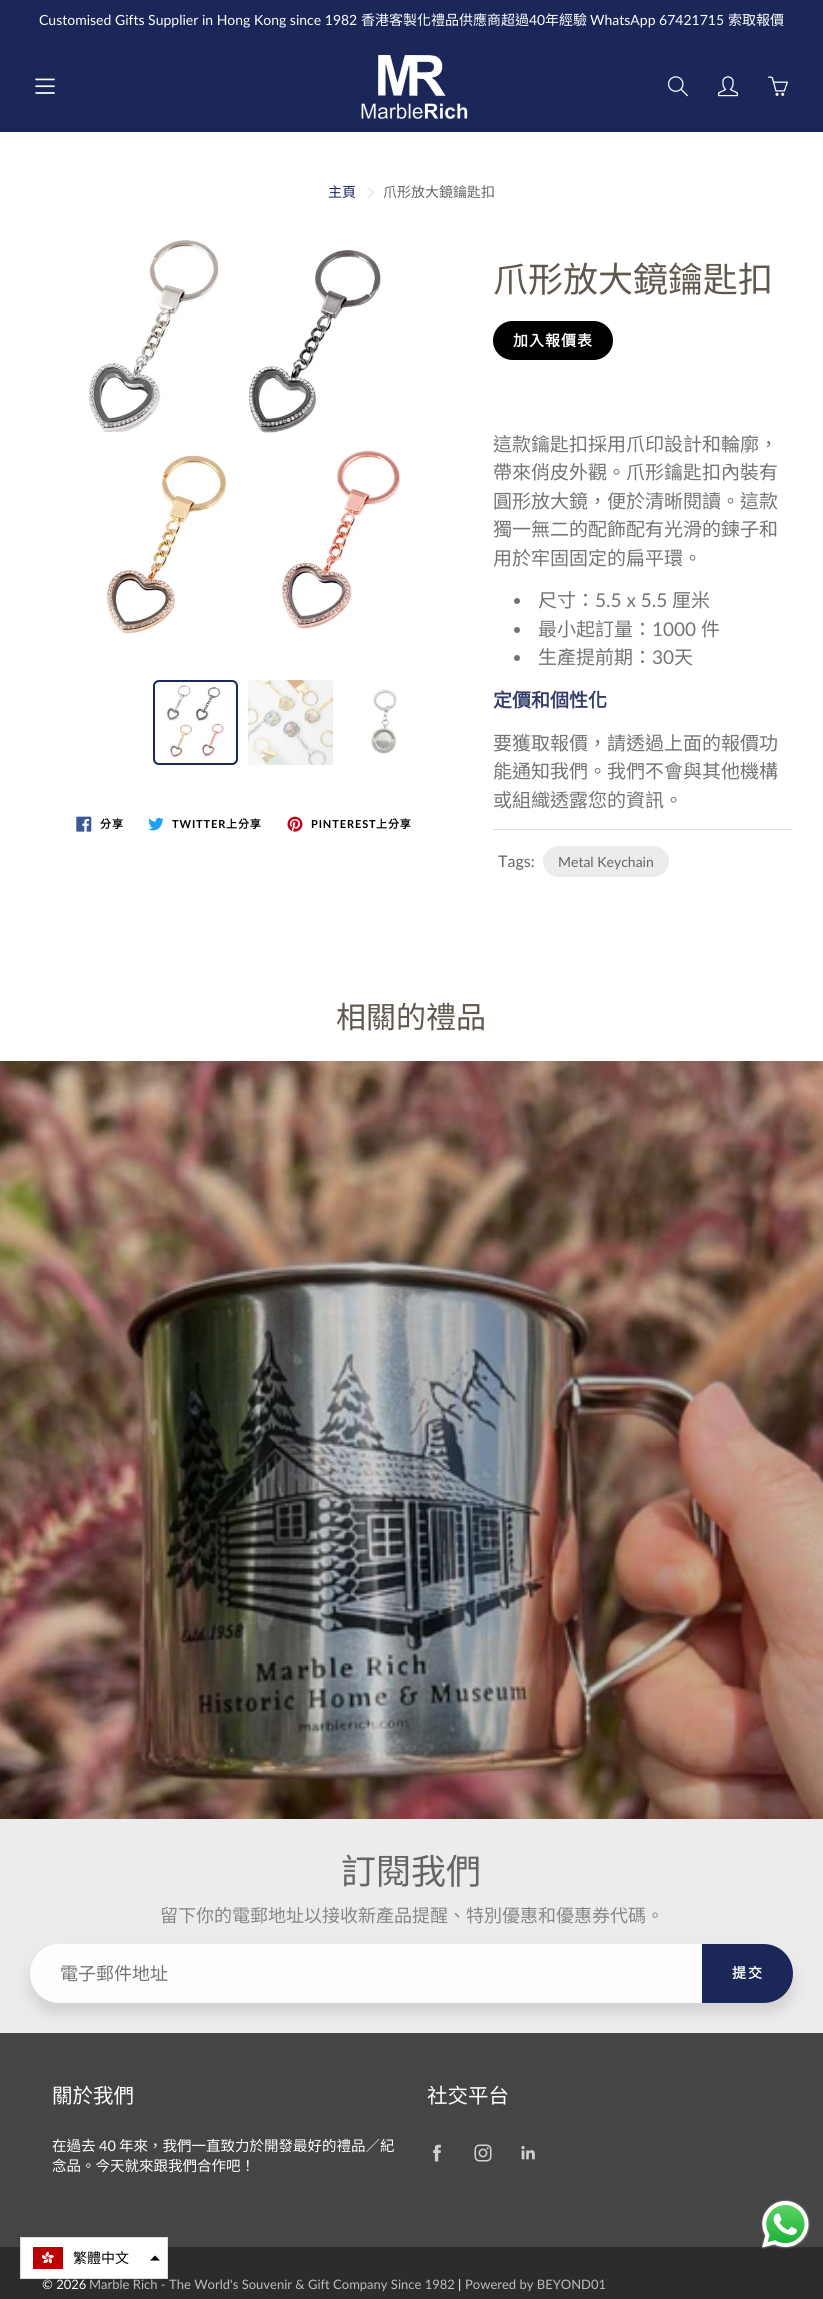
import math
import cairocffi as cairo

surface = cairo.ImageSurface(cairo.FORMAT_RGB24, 823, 2299)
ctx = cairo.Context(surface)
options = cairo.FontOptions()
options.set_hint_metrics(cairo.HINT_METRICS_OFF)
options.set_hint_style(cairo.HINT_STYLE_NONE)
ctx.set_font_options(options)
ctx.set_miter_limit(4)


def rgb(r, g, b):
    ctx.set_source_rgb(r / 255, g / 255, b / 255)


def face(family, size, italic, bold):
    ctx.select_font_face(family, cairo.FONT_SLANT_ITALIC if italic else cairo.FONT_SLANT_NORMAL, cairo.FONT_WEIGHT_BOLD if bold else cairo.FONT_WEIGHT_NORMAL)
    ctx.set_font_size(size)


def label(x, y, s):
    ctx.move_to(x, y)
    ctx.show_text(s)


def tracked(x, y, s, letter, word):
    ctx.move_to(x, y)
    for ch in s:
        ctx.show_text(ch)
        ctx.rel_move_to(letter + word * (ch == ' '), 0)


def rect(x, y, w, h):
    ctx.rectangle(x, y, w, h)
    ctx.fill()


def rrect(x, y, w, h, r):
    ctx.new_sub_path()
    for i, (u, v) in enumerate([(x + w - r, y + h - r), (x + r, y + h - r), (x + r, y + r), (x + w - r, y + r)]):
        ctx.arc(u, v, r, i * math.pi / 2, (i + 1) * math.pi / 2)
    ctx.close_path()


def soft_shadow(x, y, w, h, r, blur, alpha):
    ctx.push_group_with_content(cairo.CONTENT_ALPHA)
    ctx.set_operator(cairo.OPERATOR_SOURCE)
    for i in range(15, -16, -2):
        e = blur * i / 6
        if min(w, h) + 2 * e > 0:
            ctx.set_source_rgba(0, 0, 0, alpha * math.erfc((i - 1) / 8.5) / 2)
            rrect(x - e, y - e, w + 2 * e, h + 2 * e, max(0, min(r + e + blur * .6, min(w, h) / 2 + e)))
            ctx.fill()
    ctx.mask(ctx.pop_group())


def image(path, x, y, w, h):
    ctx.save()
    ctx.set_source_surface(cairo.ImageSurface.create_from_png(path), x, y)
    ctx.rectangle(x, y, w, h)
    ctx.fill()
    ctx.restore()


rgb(255, 255, 255)
ctx.paint()
rgb(27, 39, 89)
rect(0, 0, 823, 132)
image('image0.png', 361, 54, 107, 65)
image('image1.png', 35, 78, 20, 16)
image('image2.png', 668, 76, 20, 21)
image('image3.png', 718, 76, 20, 21)
image('image4.png', 768, 76, 20, 20)
face('Lato', 14, 0, 0)
rgb(255, 255, 255)
label(39, 25, 'Customised Gifts Supplier in Hong Kong since 1982')
face('Noto Sans CJK TC', 14, 0, 0)
label(361, 25, '香港客製化禮品供應商超過')
face('Lato', 14, 0, 0)
label(529, 25, '40')
face('Noto Sans CJK TC', 14, 0, 0)
label(545, 25, '年經驗')
face('Lato', 14, 0, 0)
label(590, 25, 'WhatsApp 67421715')
face('Noto Sans CJK TC', 14, 0, 0)
label(728, 25, '索取報價')
rgb(27, 39, 89)
label(328, 197, '主頁')
image('image5.png', 368, 187, 6, 11)
rgb(102, 101, 101)
label(383, 197, '爪形放大鏡鑰匙扣')
image('image6.png', 89, 239, 313, 395)
rrect(154, 681, 83, 83, 5)
rgb(27, 39, 89)
ctx.stroke()
image('image7.png', 166, 684, 58, 74)
image('image8.png', 248, 680, 85, 85)
image('image9.png', 371, 689, 26, 65)
image('image10.png', 76, 816, 16, 16)
face('Noto Sans CJK TC', 11, 0, 1)
rgb(0, 0, 0)
tracked(100, 828, '分享', 0.9, 0)
image('image11.png', 148, 817, 16, 14)
face('Lato', 11, 0, 1)
tracked(172, 828, 'TWITTER', 0.9, 0)
face('Noto Sans CJK TC', 11, 0, 1)
tracked(226, 828, '上分享', 0.9, 0)
image('image12.png', 287, 816, 16, 16)
face('Lato', 11, 0, 1)
tracked(311, 828, 'PINTEREST', 0.9, 0)
face('Noto Sans CJK TC', 11, 0, 1)
tracked(376, 828, '上分享', 0.9, 0)
face('Noto Sans CJK TC', 35, 0, 0)
rgb(97, 88, 77)
label(493, 292, '爪形放大鏡鑰匙扣')
rgb(0, 0, 0)
rrect(493, 321, 120, 39, 19.5)
ctx.fill()
face('Noto Sans CJK TC', 15, 0, 1)
rgb(255, 255, 255)
tracked(513, 346, '加入報價表', 1, 0)
face('Noto Sans CJK TC', 19, 0, 0)
rgb(117, 116, 116)
label(493, 451, '這款鑰匙扣採用爪印設計和輪廓，')
label(493, 479, '帶來俏皮外觀。爪形鑰匙扣內裝有')
label(493, 508, '圓形放大鏡，便於清晰閱讀。這款')
label(493, 536, '獨一無二的配飾配有光滑的鍊子和')
label(493, 565, '用於牢固固定的扁平環。')
ctx.new_path()
ctx.arc(517, 601, 3, 0, 2 * math.pi)
ctx.fill()
label(538, 607, '尺寸：')
face('Lato', 19, 0, 0)
label(595, 607, '5.5 x 5.5')
face('Noto Sans CJK TC', 19, 0, 0)
label(672, 607, '厘米')
ctx.new_path()
ctx.arc(517, 630, 3, 0, 2 * math.pi)
ctx.fill()
label(538, 636, '最小起訂量：')
face('Lato', 19, 0, 0)
label(652, 636, '1000')
face('Noto Sans CJK TC', 19, 0, 0)
label(701, 636, '件')
ctx.new_path()
ctx.arc(517, 658, 3, 0, 2 * math.pi)
ctx.fill()
label(538, 664, '生產提前期：')
face('Lato', 19, 0, 0)
label(652, 664, '30')
face('Noto Sans CJK TC', 19, 0, 0)
label(674, 664, '天')
face('Noto Sans CJK TC', 19, 0, 1)
rgb(50, 61, 106)
label(493, 707, '定價和個性化')
face('Noto Sans CJK TC', 19, 0, 0)
rgb(117, 116, 116)
label(493, 750, '要獲取報價，請透過上面的報價功')
label(493, 778, '能通知我們。我們不會與其他機構')
label(493, 807, '或組織透露您的資訊。')
rgb(221, 221, 221)
rect(493, 829, 300, 1)
face('Lato', 16, 0, 0)
rgb(102, 101, 101)
label(498, 867, 'Tags:')
rgb(236, 236, 236)
rrect(543, 846, 126, 31, 15.5)
ctx.fill()
face('Lato', 14, 0, 0)
rgb(102, 101, 101)
label(558, 867, 'Metal Keychain')
face('Noto Sans CJK TC', 30, 0, 0)
rgb(97, 88, 77)
label(336, 1028, '相關的禮品')
rgb(236, 236, 236)
rect(0, 1819, 823, 214)
image('image13.png', 0, 1061, 823, 758)
face('Noto Sans CJK TC', 35, 0, 0)
rgb(102, 101, 101)
label(341, 1884, '訂閱我們')
face('Noto Sans CJK TC', 18, 0, 0)
rgb(136, 135, 135)
label(160, 1922, '留下你的電郵地址以接收新產品提醒、特別優惠和優惠券代碼。')
rgb(69, 69, 69)
rect(0, 2033, 823, 214)
ctx.save()
ctx.set_fill_rule(cairo.FILL_RULE_EVEN_ODD)
ctx.new_path()
ctx.move_to(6, 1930)
ctx.line_to(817, 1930)
ctx.line_to(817, 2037)
ctx.line_to(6, 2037)
ctx.close_path()
ctx.move_to(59.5, 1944)
ctx.line_to(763.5, 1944)
ctx.curve_to(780, 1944, 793, 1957, 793, 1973.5)
ctx.curve_to(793, 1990, 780, 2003, 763.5, 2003)
ctx.line_to(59.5, 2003)
ctx.curve_to(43, 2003, 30, 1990, 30, 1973.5)
ctx.curve_to(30, 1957, 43, 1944, 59.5, 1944)
ctx.close_path()
ctx.clip()
rgb(0, 0, 0)
soft_shadow(30, 1954, 763, 59, 29.5, 7.5, 0.12)
ctx.restore()
ctx.set_source_rgba(1, 1, 1, 0.9)
rrect(30, 1944, 763, 59, 29.5)
ctx.fill()
rgb(117, 116, 116)
label(60, 1980, '電子郵件地址')
rgb(27, 39, 89)
ctx.new_path()
ctx.move_to(702, 1944)
ctx.line_to(763.5, 1944)
ctx.curve_to(780, 1944, 793, 1957, 793, 1973.5)
ctx.curve_to(793, 1990, 780, 2003, 763.5, 2003)
ctx.line_to(702, 2003)
ctx.close_path()
ctx.fill()
face('Noto Sans CJK TC', 14, 0, 1)
rgb(255, 255, 255)
tracked(732, 1978, '提交', 2, 0)
face('Noto Sans CJK TC', 20.5, 0, 0)
label(52, 2103, '關於我們')
face('Noto Sans CJK TC', 14.5, 0, 0)
label(52, 2151, '在過去')
face('Lato', 14.5, 0, 0)
label(99, 2151, '40')
face('Noto Sans CJK TC', 14.5, 0, 0)
label(119, 2151, '年來，我們一直致力於開發最好的禮品／紀')
label(52, 2171, '念品。今天就來跟我們合作吧！')
face('Noto Sans CJK TC', 20.5, 0, 0)
label(427, 2103, '社交平台')
image('image14.png', 433, 2144, 8, 18)
image('image15.png', 474, 2144, 18, 18)
image('image16.png', 521, 2146, 14, 14)
rgb(44, 44, 44)
rect(0, 2247, 823, 52)
face('Lato', 13, 0, 0)
rgb(255, 255, 255)
label(42, 2289, '© 2026')
rgb(189, 189, 189)
label(89, 2289, 'Marble Rich - The World\'s Souvenir & Gift Company Since 1982')
rgb(255, 255, 255)
label(458, 2289, '|')
rgb(189, 189, 189)
label(465, 2289, 'Powered by BEYOND01')
image('image17.png', 761, 2199, 50, 50)
rgb(255, 255, 255)
ctx.rectangle(20.5, 2237.5, 147, 41)
ctx.fill_preserve()
rgb(224, 224, 224)
ctx.set_line_width(1)
ctx.stroke()
image('image18.png', 33, 2247, 30, 22)
face('Noto Sans CJK TC', 14, 0, 0)
rgb(0, 0, 0)
label(73, 2263, '繁體中文')
ctx.set_fill_rule(cairo.FILL_RULE_EVEN_ODD)
ctx.new_path()
ctx.move_to(150, 2260.5)
ctx.line_to(155, 2255.5)
ctx.line_to(160, 2260.5)
ctx.close_path()
ctx.fill()
surface.write_to_png('render.png')
